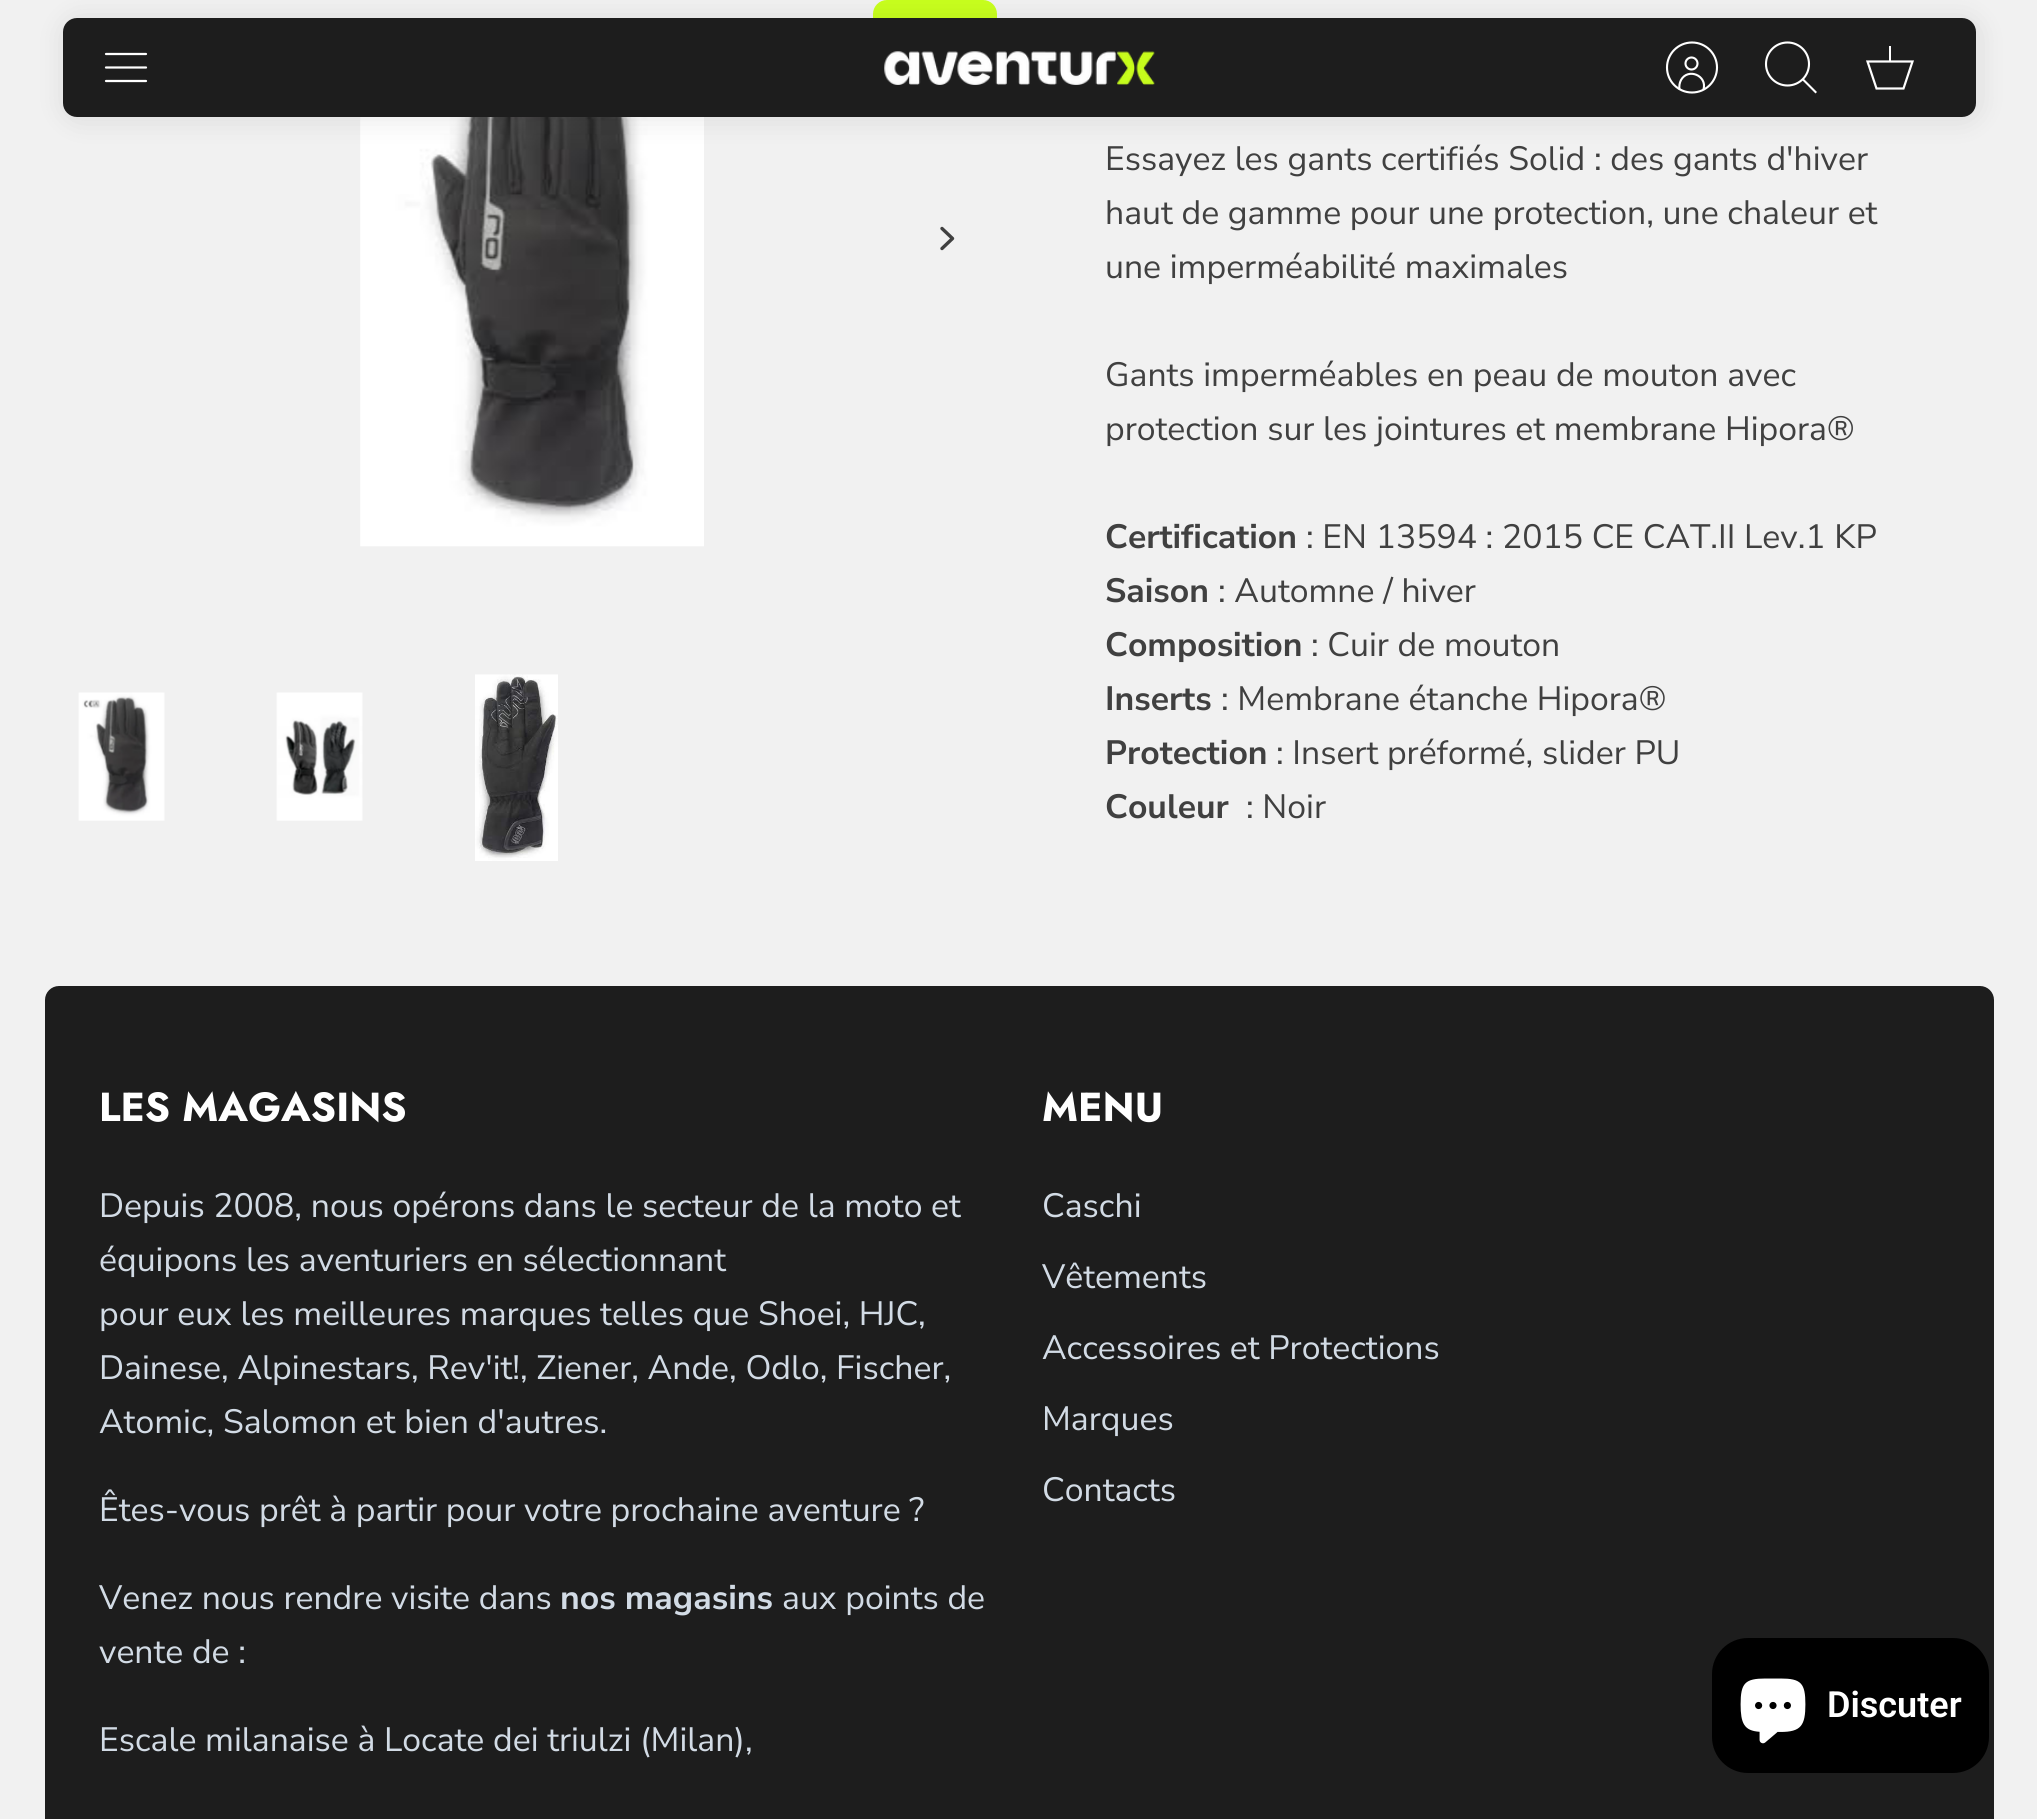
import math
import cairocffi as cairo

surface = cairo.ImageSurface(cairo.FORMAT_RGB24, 2037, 1819)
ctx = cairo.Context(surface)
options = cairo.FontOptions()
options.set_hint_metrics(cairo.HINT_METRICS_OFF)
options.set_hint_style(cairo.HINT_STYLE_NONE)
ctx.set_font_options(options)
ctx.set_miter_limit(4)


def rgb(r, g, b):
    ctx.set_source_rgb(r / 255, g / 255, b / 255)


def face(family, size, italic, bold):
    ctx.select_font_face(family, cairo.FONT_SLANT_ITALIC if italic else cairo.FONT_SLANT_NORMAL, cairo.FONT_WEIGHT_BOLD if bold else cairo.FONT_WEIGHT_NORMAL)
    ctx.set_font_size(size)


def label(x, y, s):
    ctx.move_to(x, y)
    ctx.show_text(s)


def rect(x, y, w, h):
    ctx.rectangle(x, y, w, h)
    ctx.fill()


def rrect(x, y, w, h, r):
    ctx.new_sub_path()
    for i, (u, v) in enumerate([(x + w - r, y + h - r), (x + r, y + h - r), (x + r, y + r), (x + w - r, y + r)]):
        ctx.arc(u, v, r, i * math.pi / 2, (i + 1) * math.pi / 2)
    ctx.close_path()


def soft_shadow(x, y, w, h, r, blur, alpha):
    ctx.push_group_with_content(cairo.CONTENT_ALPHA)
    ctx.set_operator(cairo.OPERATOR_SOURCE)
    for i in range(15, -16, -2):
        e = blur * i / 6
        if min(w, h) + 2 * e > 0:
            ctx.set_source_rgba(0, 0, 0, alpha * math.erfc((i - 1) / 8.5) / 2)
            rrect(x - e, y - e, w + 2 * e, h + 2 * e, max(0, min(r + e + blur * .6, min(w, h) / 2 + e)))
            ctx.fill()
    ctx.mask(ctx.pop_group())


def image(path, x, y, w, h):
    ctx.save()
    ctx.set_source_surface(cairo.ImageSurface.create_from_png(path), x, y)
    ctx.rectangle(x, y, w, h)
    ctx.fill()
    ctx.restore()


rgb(241, 241, 241)
ctx.paint()
rgb(200, 255, 29)
rrect(873, 0, 124, 56, 14)
ctx.fill()
image('image1.png', 360, 117, 344, 430)
rgb(0, 0, 0)
soft_shadow(65, 20, 1913, 99, 14, 13.5, 0.1)
rgb(29, 29, 29)
rrect(63, 18, 1913, 99, 14)
ctx.fill()
ctx.new_path()
ctx.move_to(106, 67.5)
ctx.line_to(146, 67.5)
ctx.move_to(106, 54)
ctx.line_to(146, 54)
ctx.move_to(106, 81)
ctx.line_to(146, 81)
rgb(255, 255, 255)
ctx.set_line_width(2.2)
ctx.set_line_cap(cairo.LINE_CAP_ROUND)
ctx.set_line_join(cairo.LINE_JOIN_ROUND)
ctx.stroke()
image('image0.png', 884, 51, 271, 34)
ctx.new_path()
ctx.move_to(1703.5, 89.5)
ctx.curve_to(1707.5, 75.5, 1688, 67.5, 1681, 80)
ctx.curve_to(1679.5, 83, 1679, 86, 1679.5, 89.5)
ctx.set_line_width(2.1)
ctx.set_line_cap(cairo.LINE_CAP_BUTT)
ctx.set_line_join(cairo.LINE_JOIN_MITER)
ctx.stroke()
ctx.arc(1691.5, 63.5, 6, 0, 2 * math.pi)
ctx.stroke()
ctx.arc(1692, 67.5, 25, 0, 2 * math.pi)
ctx.stroke()
ctx.arc(1787.5, 64, 21.5, 0, 2 * math.pi)
ctx.stroke()
ctx.new_path()
ctx.move_to(1803.5, 80)
ctx.line_to(1815.5, 92)
ctx.set_line_cap(cairo.LINE_CAP_SQUARE)
ctx.stroke()
ctx.new_path()
ctx.move_to(1867.5, 61.5)
ctx.line_to(1912.5, 61.5)
ctx.line_to(1903.5, 88.5)
ctx.line_to(1876.5, 88.5)
ctx.close_path()
ctx.set_line_width(2.2)
ctx.set_line_cap(cairo.LINE_CAP_BUTT)
ctx.stroke()
rect(1889, 46, 2, 16)
ctx.new_path()
ctx.move_to(942, 248.5)
ctx.line_to(952.5, 238.5)
ctx.line_to(942, 228.5)
rgb(64, 64, 64)
ctx.set_line_width(3.4)
ctx.set_line_cap(cairo.LINE_CAP_ROUND)
ctx.set_line_join(cairo.LINE_JOIN_ROUND)
ctx.stroke()
image('image2.png', 78, 692, 87, 129)
image('image3.png', 276, 692, 87, 129)
image('image4.png', 475, 674, 83, 187)
face('Nunito Sans', 33.75, 0, 0)
label(1105, 170, 'Essayez les gants certifiés Solid : des gants d\'hiver')
label(1105, 224, 'haut de gamme pour une protection, une chaleur et')
label(1105, 278, 'une imperméabilité maximales')
label(1105, 386, 'Gants imperméables en peau de mouton avec')
label(1105, 440, 'protection sur les jointures et membrane Hipora®')
face('Nunito Sans', 33.75, 0, 1)
label(1105, 548, 'Certification')
face('Nunito Sans', 33.75, 0, 0)
label(1306, 548, ': EN 13594 : 2015 CE CAT.II Lev.1 KP')
face('Nunito Sans', 33.75, 0, 1)
label(1105, 602, 'Saison')
face('Nunito Sans', 33.75, 0, 0)
label(1218, 602, ': Automne / hiver')
face('Nunito Sans', 33.75, 0, 1)
label(1105, 656, 'Composition')
face('Nunito Sans', 33.75, 0, 0)
label(1311, 656, ': Cuir de mouton')
face('Nunito Sans', 33.75, 0, 1)
label(1105, 710, 'Inserts')
face('Nunito Sans', 33.75, 0, 0)
label(1221, 710, ': Membrane étanche Hipora®')
face('Nunito Sans', 33.75, 0, 1)
label(1105, 764, 'Protection')
face('Nunito Sans', 33.75, 0, 0)
label(1276, 764, ': Insert préformé, slider PU')
face('Nunito Sans', 33.75, 0, 1)
label(1105, 818, 'Couleur')
face('Nunito Sans', 33.75, 0, 0)
label(1246, 818, ': Noir')
rgb(29, 29, 29)
rrect(45, 986, 1949, 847, 14)
ctx.fill()
face('Jost', 40.5, 0, 1)
rgb(255, 255, 255)
label(99, 1121, 'LES MAGASINS')
face('Nunito Sans', 33.75, 0, 0)
rgb(210, 219, 229)
label(99, 1217, 'Depuis 2008, nous opérons dans le secteur de la moto et')
label(99, 1271, 'équipons les aventuriers en sélectionnant')
label(99, 1325, 'pour eux les meilleures marques telles que Shoei, HJC,')
label(99, 1379, 'Dainese, Alpinestars, Rev\'it!, Ziener, Ande, Odlo, Fischer,')
label(99, 1433, 'Atomic, Salomon et bien d\'autres.')
label(99, 1521, 'Êtes-vous prêt à partir pour votre prochaine aventure ?')
label(99, 1609, 'Venez nous rendre visite dans')
face('Nunito Sans', 33.75, 0, 1)
label(560, 1609, 'nos magasins')
face('Nunito Sans', 33.75, 0, 0)
label(782, 1609, 'aux points de')
label(99, 1663, 'vente de :')
label(99, 1751, 'Escale milanaise à Locate dei triulzi (Milan),')
face('Jost', 40.5, 0, 1)
rgb(255, 255, 255)
label(1042, 1121, 'MENU')
face('Nunito Sans', 33.75, 0, 0)
rgb(210, 219, 229)
label(1042, 1217, 'Caschi')
label(1042, 1288, 'Vêtements')
label(1042, 1359, 'Accessoires et Protections')
label(1042, 1430, 'Marques')
label(1042, 1501, 'Contacts')
rgb(0, 0, 0)
rrect(1712, 1638, 277, 135, 36)
ctx.fill()
image('image5.png', 1740, 1678, 66, 66)
face('Roboto SemiBold', 36, 0, 0)
rgb(255, 255, 255)
label(1827, 1717, 'Discuter')
surface.write_to_png('render.png')
